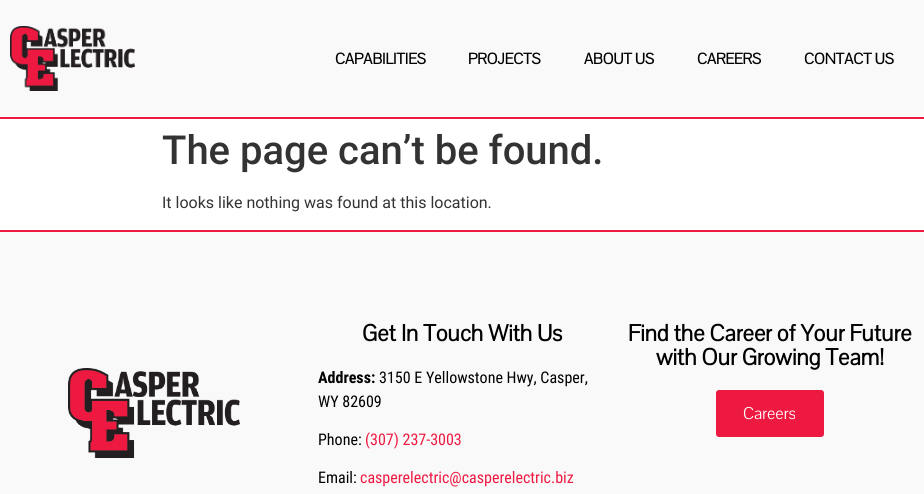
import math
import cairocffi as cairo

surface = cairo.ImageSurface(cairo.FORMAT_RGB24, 924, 494)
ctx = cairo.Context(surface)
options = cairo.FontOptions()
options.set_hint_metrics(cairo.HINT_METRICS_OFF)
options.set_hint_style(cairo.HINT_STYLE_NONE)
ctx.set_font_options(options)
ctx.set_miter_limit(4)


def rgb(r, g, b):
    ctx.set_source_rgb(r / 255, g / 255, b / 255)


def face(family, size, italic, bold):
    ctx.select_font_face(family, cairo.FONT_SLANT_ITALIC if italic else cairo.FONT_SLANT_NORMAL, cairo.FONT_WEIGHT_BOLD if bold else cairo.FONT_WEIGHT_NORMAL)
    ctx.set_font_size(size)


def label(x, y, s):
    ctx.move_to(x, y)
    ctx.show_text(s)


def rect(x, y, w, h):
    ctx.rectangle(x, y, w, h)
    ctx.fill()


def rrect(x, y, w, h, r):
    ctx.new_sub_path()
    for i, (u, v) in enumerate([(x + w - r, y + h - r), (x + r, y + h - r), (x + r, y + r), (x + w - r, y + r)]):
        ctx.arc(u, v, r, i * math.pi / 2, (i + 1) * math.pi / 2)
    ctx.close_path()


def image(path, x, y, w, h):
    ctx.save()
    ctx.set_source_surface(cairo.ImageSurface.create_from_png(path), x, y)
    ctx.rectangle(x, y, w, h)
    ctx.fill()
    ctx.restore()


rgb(255, 255, 255)
ctx.paint()
rgb(249, 249, 249)
rect(0, 0, 924, 117)
rgb(238, 25, 65)
rect(0, 117, 924, 2)
image('image0.png', 10, 26, 125, 65)
face('Pavanam', 16, 0, 1)
rgb(0, 0, 0)
label(335, 64, 'CAPABILITIES')
label(468, 64, 'PROJECTS')
label(584, 64, 'ABOUT US')
label(697, 64, 'CAREERS')
label(804, 64, 'CONTACT US')
face('Roboto Medium', 40, 0, 0)
rgb(51, 51, 51)
label(162, 164, 'The page can’t be found.')
face('Roboto', 16, 0, 0)
label(162, 208, 'It looks like nothing was found at this location.')
rgb(249, 249, 249)
rect(0, 232, 924, 262)
rgb(238, 25, 65)
rect(0, 230, 924, 2)
image('image1.png', 68, 368, 172, 90)
face('Pavanam', 24, 0, 1)
rgb(0, 0, 0)
label(362, 341, 'Get In Touch With Us')
face('Roboto Condensed', 16, 0, 1)
label(318, 383, 'Address:')
face('Roboto Condensed', 16, 0, 0)
label(379, 383, '3150 E Yellowstone Hwy, Casper,')
label(318, 407, 'WY 82609')
label(318, 445, 'Phone:')
rgb(238, 25, 65)
label(365, 445, '(307) 237-3003')
rgb(0, 0, 0)
label(318, 483, 'Email:')
rgb(238, 25, 65)
label(360, 483, 'casperelectric@casperelectric.biz')
face('Pavanam', 24, 0, 1)
rgb(0, 0, 0)
label(628, 341, 'Find the Career of Your Future')
label(656, 365, 'with Our Growing Team!')
rgb(238, 25, 65)
rrect(717.5, 391.5, 105, 44, 1.5)
ctx.fill_preserve()
ctx.set_line_width(3)
ctx.stroke()
face('Pavanam', 17.5, 0, 0)
rgb(255, 255, 255)
label(743, 419, 'Careers')
surface.write_to_png('render.png')
